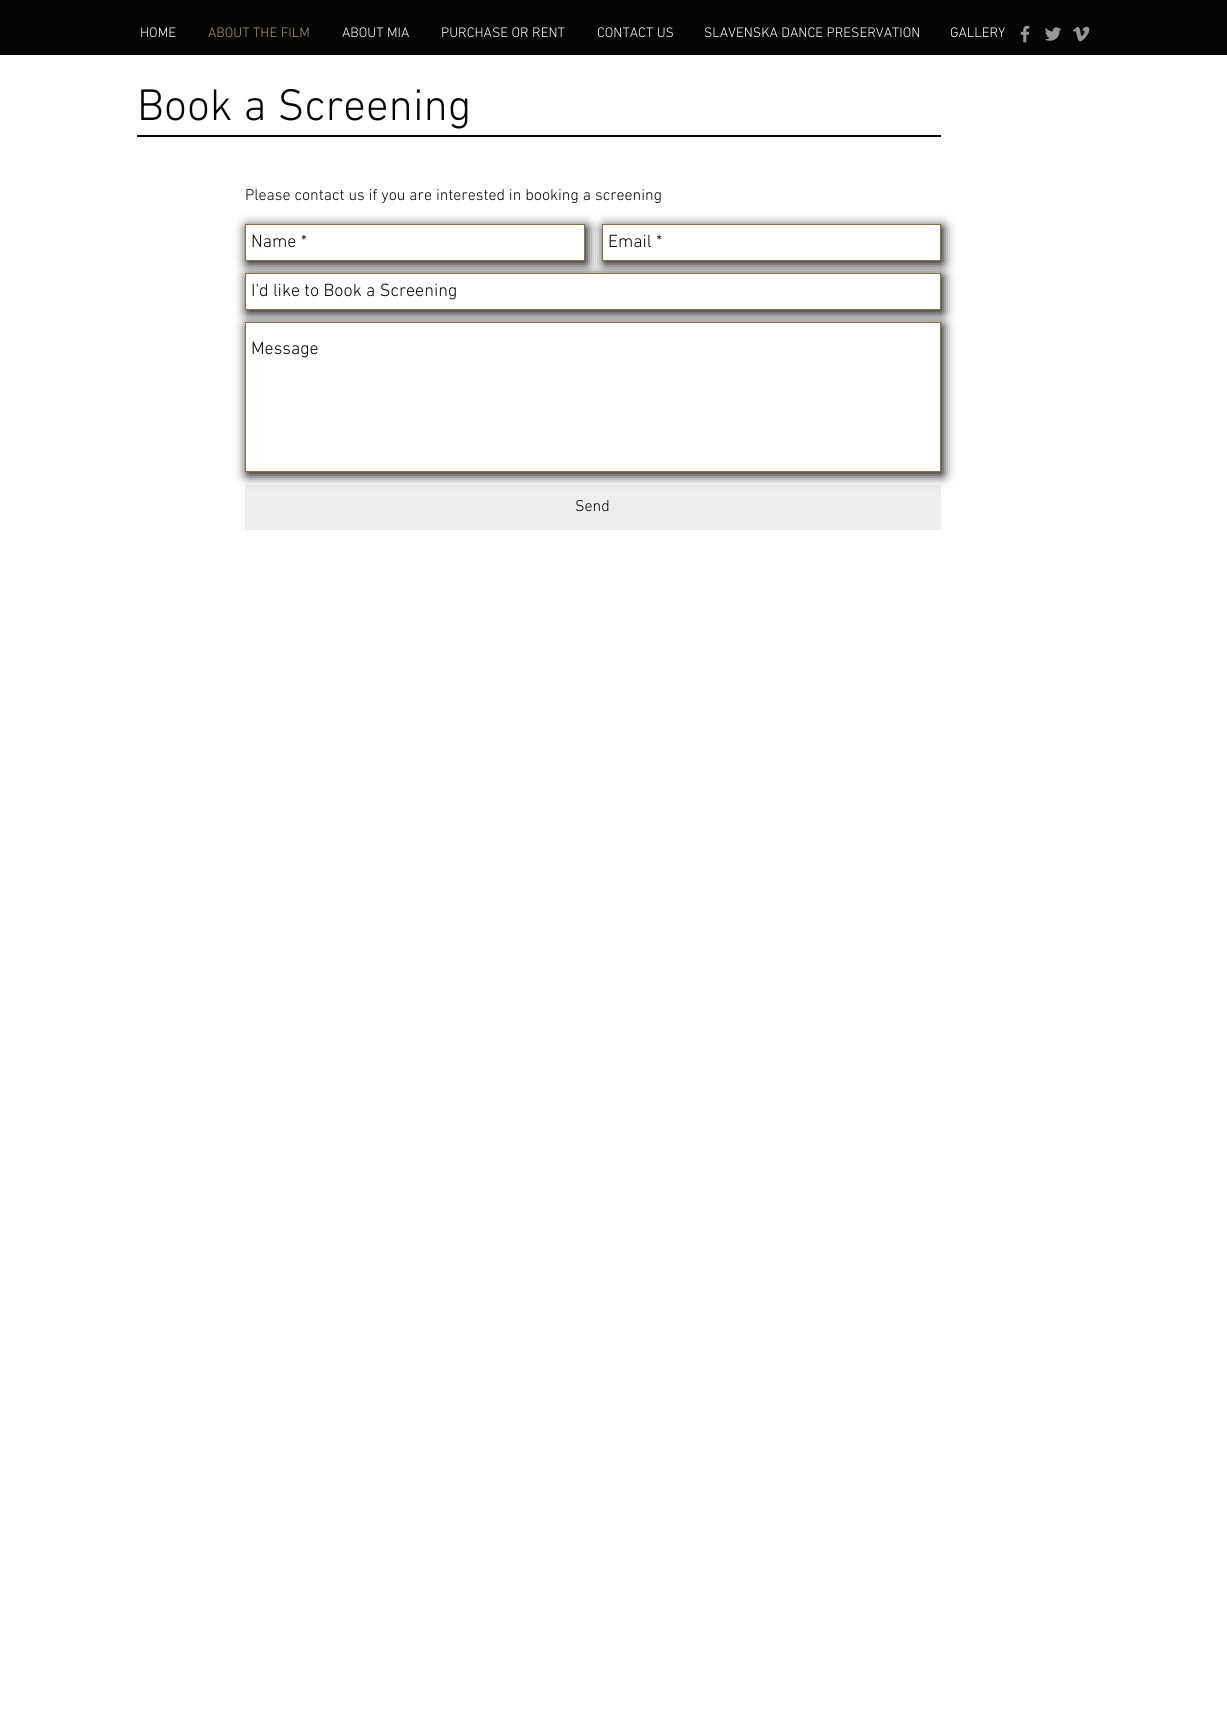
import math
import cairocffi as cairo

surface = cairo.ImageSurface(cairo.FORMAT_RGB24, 1227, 1729)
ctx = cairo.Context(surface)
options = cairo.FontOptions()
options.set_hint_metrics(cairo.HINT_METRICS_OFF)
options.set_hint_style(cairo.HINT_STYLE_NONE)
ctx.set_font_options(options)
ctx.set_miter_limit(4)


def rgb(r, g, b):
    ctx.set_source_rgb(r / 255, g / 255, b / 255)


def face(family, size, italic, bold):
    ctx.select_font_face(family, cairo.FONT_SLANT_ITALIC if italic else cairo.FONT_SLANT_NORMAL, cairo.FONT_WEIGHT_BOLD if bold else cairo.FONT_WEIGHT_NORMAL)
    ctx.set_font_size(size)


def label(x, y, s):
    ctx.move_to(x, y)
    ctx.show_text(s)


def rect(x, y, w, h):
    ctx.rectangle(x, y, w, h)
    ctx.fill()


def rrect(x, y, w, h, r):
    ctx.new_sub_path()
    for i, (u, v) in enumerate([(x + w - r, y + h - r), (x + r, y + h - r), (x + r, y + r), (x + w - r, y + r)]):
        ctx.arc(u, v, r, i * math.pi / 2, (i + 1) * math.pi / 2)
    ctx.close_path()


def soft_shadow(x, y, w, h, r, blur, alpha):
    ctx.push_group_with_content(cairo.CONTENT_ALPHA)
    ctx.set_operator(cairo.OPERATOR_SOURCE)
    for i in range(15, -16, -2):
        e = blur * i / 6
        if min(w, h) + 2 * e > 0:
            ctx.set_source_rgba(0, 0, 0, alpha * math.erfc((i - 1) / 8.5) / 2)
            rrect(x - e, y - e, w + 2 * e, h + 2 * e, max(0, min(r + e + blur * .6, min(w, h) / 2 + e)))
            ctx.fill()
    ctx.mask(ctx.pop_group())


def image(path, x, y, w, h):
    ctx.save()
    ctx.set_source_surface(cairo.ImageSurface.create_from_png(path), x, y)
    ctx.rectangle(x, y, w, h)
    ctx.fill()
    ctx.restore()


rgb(255, 255, 255)
ctx.paint()
rgb(5, 5, 5)
rect(0, 0, 1227, 55)
face('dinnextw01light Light', 14, 0, 0)
rgb(255, 255, 255)
label(140, 37, 'HOME')
rgb(163, 149, 109)
label(208, 37, 'ABOUT THE FILM')
rgb(255, 255, 255)
label(342, 37, 'ABOUT MIA')
label(441, 37, 'PURCHASE OR RENT')
label(597, 37, 'CONTACT US')
label(704, 37, 'SLAVENSKA DANCE PRESERVATION')
label(950, 37, 'GALLERY')
image('image0.png', 1020, 25, 10, 18)
image('image1.png', 1045, 27, 16, 14)
image('image2.png', 1072, 26, 18, 16)
face('dinnextw01light Light', 45, 0, 0)
rgb(5, 5, 5)
label(137, 120, 'Book a Screening')
rect(137, 135, 804, 2)
face('dinnextw01light Light', 16, 0, 0)
label(245, 200, 'Please contact us if you are interested in booking a screening')
ctx.save()
ctx.set_fill_rule(cairo.FILL_RULE_EVEN_ODD)
ctx.new_path()
ctx.move_to(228, 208)
ctx.line_to(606, 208)
ctx.line_to(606, 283)
ctx.line_to(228, 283)
ctx.close_path()
ctx.move_to(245, 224)
ctx.line_to(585, 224)
ctx.line_to(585, 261)
ctx.line_to(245, 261)
ctx.close_path()
ctx.clip()
rgb(0, 0, 0)
soft_shadow(247, 227, 340, 37, 0, 6, 1)
ctx.restore()
ctx.rectangle(245.5, 224.5, 339, 36)
rgb(131, 114, 68)
ctx.set_line_width(1)
ctx.stroke()
face('dinnextw01light Light', 18, 0, 0)
rgb(5, 5, 5)
label(251, 247, 'Name *')
ctx.save()
ctx.set_fill_rule(cairo.FILL_RULE_EVEN_ODD)
ctx.new_path()
ctx.move_to(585, 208)
ctx.line_to(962, 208)
ctx.line_to(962, 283)
ctx.line_to(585, 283)
ctx.close_path()
ctx.move_to(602, 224)
ctx.line_to(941, 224)
ctx.line_to(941, 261)
ctx.line_to(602, 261)
ctx.close_path()
ctx.clip()
rgb(0, 0, 0)
soft_shadow(604, 227, 339, 37, 0, 6, 1)
ctx.restore()
ctx.rectangle(602.5, 224.5, 338, 36)
rgb(131, 114, 68)
ctx.stroke()
rgb(5, 5, 5)
label(608, 247, 'Email *')
rgb(0, 0, 0)
soft_shadow(247, 276, 696, 37, 0, 6, 1)
rgb(255, 255, 255)
ctx.rectangle(245.5, 273.5, 695, 36)
ctx.fill_preserve()
rgb(131, 114, 68)
ctx.stroke()
rgb(5, 5, 5)
label(251, 296, 'I\'d like to Book a Screening')
rgb(0, 0, 0)
soft_shadow(247, 325, 696, 150, 0, 6, 1)
rgb(255, 255, 255)
ctx.rectangle(245.5, 322.5, 695, 149)
ctx.fill_preserve()
rgb(131, 114, 68)
ctx.stroke()
rgb(5, 5, 5)
label(251, 354, 'Message')
ctx.set_source_rgba(0.667, 0.667, 0.667, 0.2)
rect(245, 485, 696, 45)
face('dinnextw01light Light', 16, 0, 0)
rgb(5, 5, 5)
label(575, 511, 'Send')
surface.write_to_png('render.png')
